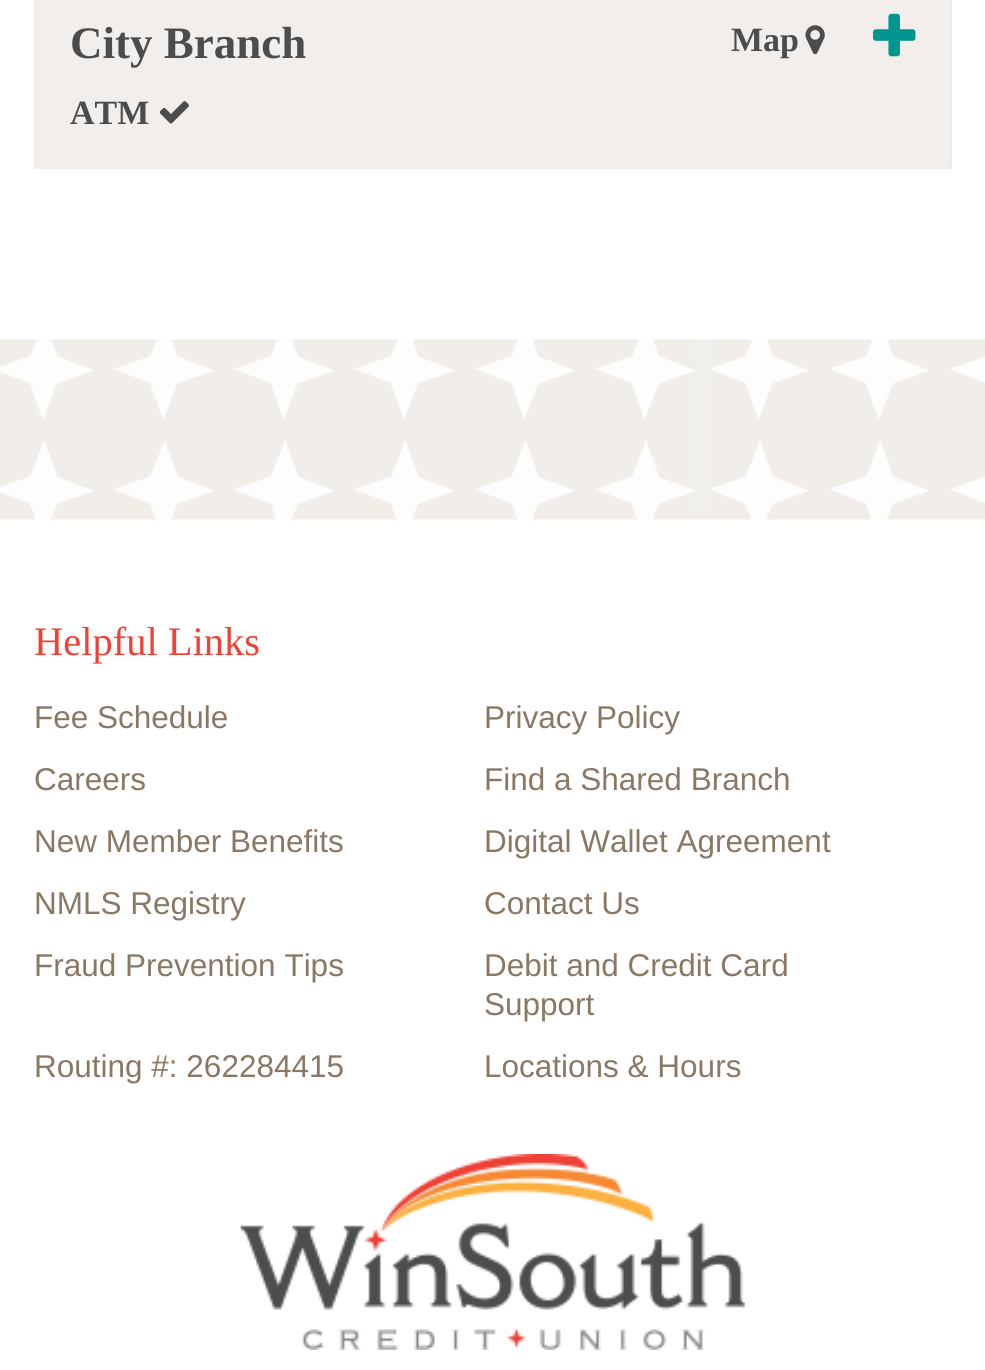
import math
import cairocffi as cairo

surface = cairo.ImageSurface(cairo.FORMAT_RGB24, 985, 1370)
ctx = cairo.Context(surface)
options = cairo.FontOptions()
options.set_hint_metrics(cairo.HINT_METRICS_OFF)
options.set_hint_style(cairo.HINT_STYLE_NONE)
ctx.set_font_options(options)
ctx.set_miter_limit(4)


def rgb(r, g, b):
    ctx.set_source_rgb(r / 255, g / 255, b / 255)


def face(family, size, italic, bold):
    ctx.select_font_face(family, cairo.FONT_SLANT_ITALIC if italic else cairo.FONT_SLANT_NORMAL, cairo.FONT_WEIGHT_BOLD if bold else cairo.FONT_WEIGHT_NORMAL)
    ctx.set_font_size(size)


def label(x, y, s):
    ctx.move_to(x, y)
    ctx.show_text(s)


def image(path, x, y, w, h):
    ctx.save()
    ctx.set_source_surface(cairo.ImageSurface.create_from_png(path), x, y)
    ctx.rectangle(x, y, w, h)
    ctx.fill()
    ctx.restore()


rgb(255, 255, 255)
ctx.paint()
rgb(241, 238, 235)
ctx.rectangle(35, -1, 916, 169)
ctx.fill_preserve()
rgb(235, 235, 235)
ctx.stroke()
face('Liberation Serif', 45, 0, 1)
rgb(75, 76, 77)
label(70, 58, 'City Branch')
face('Liberation Serif', 34, 0, 1)
label(731, 51, 'Map')
image('image0.png', 805, 25, 20, 30)
image('image1.png', 873, 13, 43, 44)
label(70, 124, 'ATM')
image('image2.png', 159, 101, 30, 23)
image('image3.png', 0, 339, 985, 181)
face('Liberation Serif', 40.5, 0, 0)
rgb(239, 65, 53)
label(34, 655, 'Helpful Links')
face('Liberation Sans', 31.5, 0, 0)
rgb(138, 120, 102)
label(34, 728, 'Fee Schedule')
label(484, 728, 'Privacy Policy')
label(34, 790, 'Careers')
label(484, 790, 'Find a Shared Branch')
label(34, 852, 'New Member Benefits')
label(484, 852, 'Digital Wallet Agreement')
label(34, 914, 'NMLS Registry')
label(484, 914, 'Contact Us')
label(34, 976, 'Fraud Prevention Tips')
label(484, 976, 'Debit and Credit Card')
label(484, 1015, 'Support')
label(34, 1077, 'Routing #: 262284415')
label(484, 1077, 'Locations & Hours')
image('image4.png', 240, 1154, 505, 196)
surface.write_to_png('render.png')
